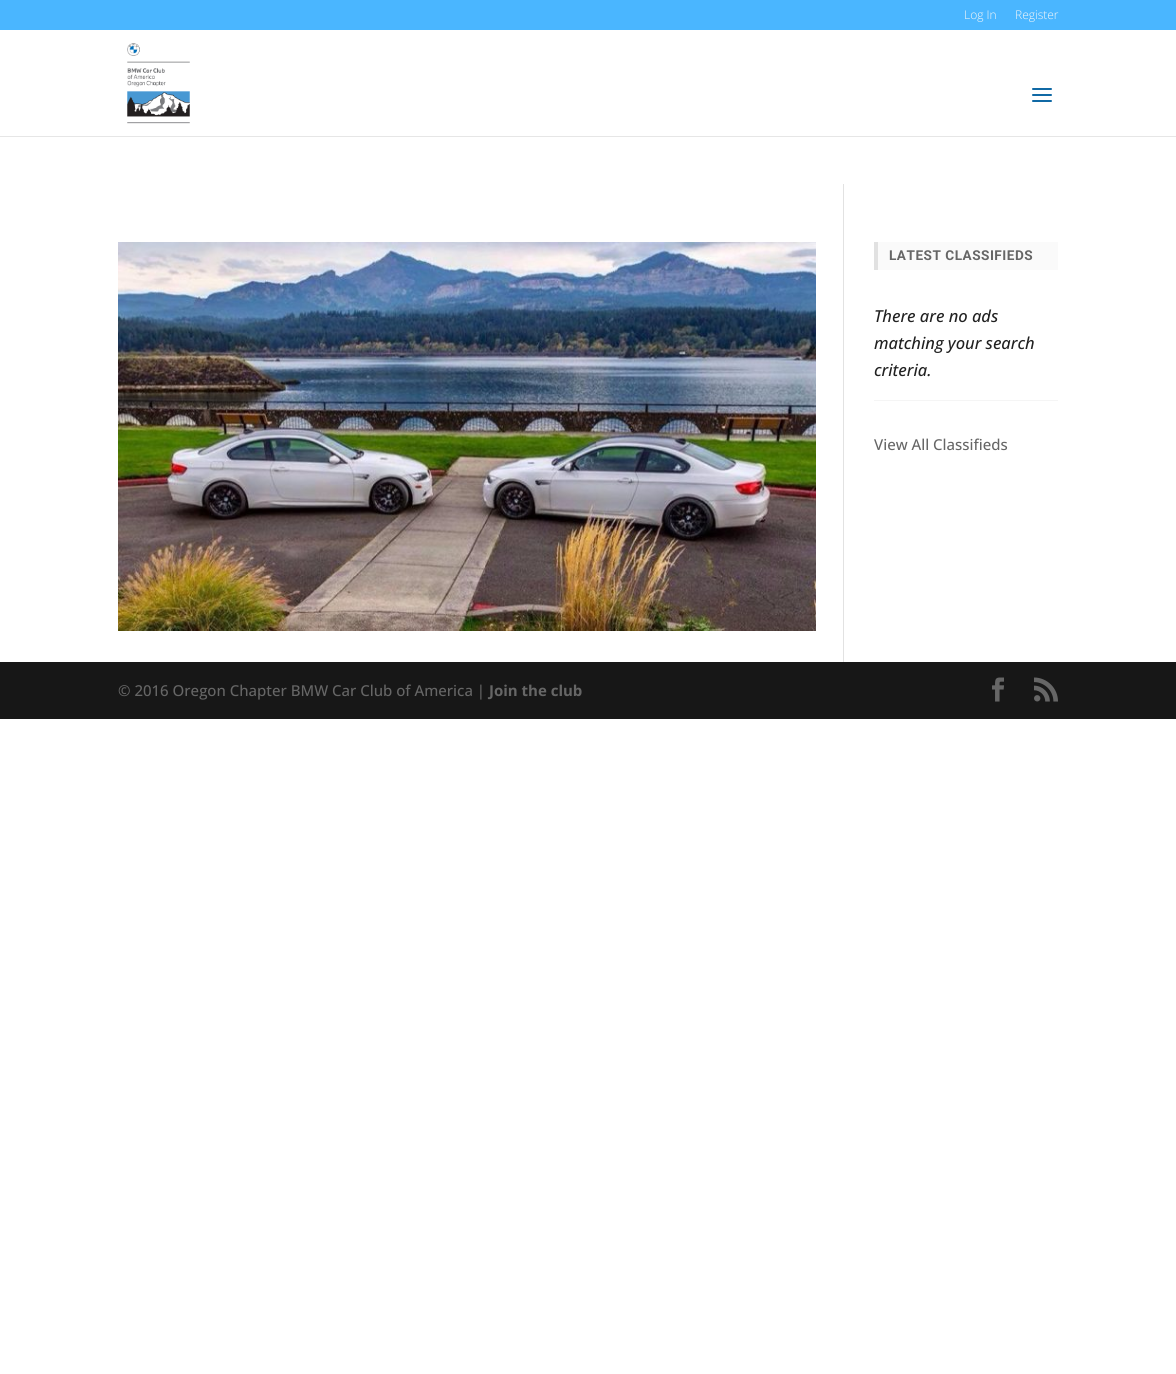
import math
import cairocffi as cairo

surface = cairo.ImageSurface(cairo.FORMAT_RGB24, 1176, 1374)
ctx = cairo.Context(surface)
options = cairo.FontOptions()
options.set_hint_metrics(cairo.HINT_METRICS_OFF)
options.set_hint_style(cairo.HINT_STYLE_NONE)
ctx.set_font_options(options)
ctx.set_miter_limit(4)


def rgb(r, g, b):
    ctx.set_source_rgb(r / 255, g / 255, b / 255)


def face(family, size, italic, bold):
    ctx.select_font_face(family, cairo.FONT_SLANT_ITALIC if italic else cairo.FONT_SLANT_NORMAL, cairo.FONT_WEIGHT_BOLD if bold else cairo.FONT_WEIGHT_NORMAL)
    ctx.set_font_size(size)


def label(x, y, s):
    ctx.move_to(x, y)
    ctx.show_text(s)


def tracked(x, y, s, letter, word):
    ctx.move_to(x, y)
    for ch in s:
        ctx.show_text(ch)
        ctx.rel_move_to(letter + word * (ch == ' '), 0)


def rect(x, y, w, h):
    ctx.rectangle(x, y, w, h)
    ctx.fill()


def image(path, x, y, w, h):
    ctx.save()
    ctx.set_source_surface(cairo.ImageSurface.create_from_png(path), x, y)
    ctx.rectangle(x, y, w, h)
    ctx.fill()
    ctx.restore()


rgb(255, 255, 255)
ctx.paint()
rgb(74, 182, 255)
rect(0, 0, 1176, 30)
face('Open Sans Light', 12, 0, 0)
rgb(247, 247, 247)
label(964, 19, 'Log In')
label(1015, 19, 'Register')
rgb(230, 230, 230)
rect(0, 136, 1176, 1)
image('image0.png', 127, 43, 63, 81)
image('image1.png', 1032, 88, 20, 14)
rgb(226, 226, 226)
rect(843, 184, 1, 478)
image('image2.png', 118, 242, 698, 389)
rgb(250, 250, 250)
rect(878, 242, 180, 28)
rgb(225, 225, 225)
rect(874, 242, 4, 28)
face('Roboto', 13.6, 0, 1)
rgb(102, 102, 102)
tracked(889, 260, 'LATEST CLASSIFIEDS', 0.5, 0)
rgb(245, 245, 245)
rect(874, 400, 184, 1)
face('Open Sans Medium', 16.5, 1, 0)
rgb(33, 33, 33)
label(874, 322, 'There are no ads')
label(874, 349, 'matching your search')
label(874, 376, 'criteria.')
face('Open Sans Medium', 15, 0, 0)
rgb(102, 102, 102)
label(874, 450, 'View All Classifieds')
rgb(23, 23, 23)
rect(0, 662, 1176, 57)
rgb(102, 102, 102)
label(118, 696, '© 2016 Oregon Chapter BMW Car Club of America |')
face('Open Sans', 15, 0, 1)
label(489, 696, 'Join the club')
image('image3.png', 992, 677, 12, 25)
image('image4.png', 1034, 677, 24, 25)
surface.write_to_png('render.png')
